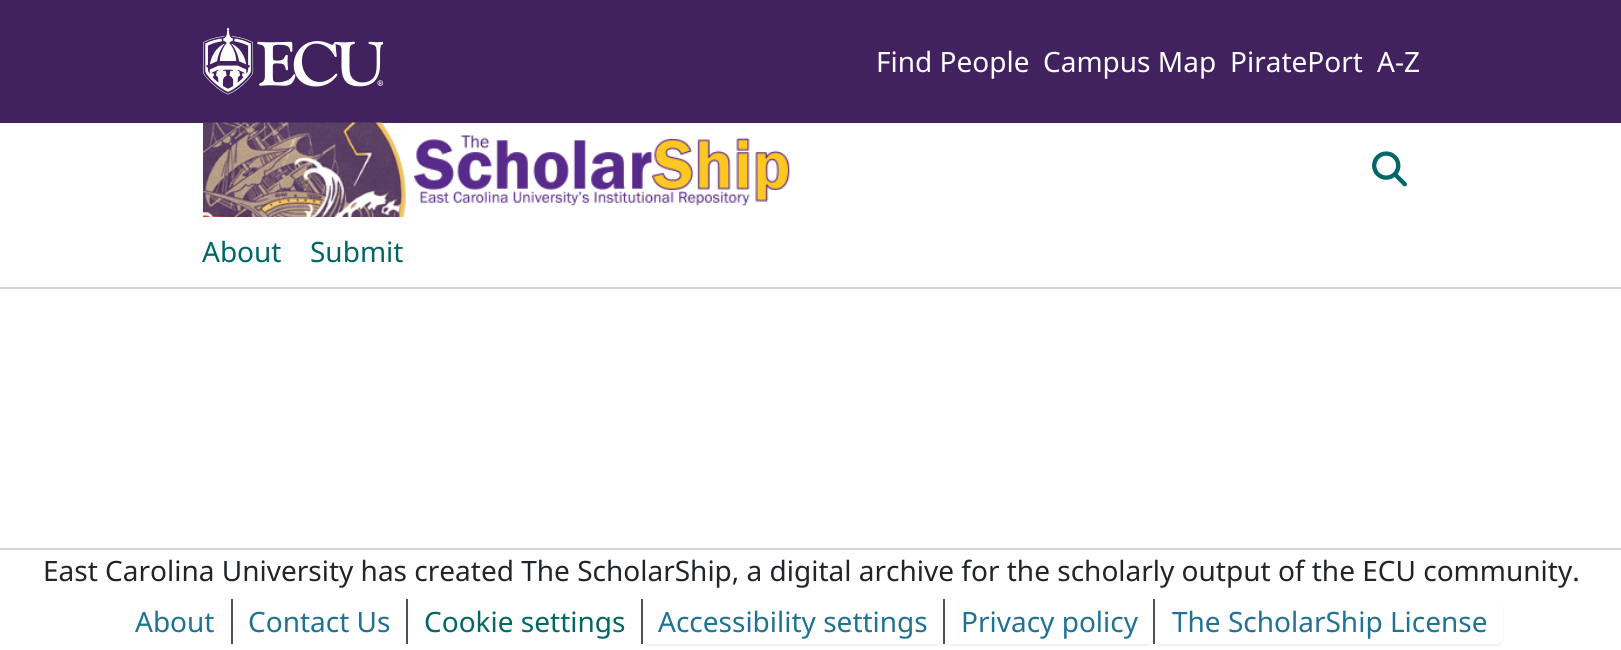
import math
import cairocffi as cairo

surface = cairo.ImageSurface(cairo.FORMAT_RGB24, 1621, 650)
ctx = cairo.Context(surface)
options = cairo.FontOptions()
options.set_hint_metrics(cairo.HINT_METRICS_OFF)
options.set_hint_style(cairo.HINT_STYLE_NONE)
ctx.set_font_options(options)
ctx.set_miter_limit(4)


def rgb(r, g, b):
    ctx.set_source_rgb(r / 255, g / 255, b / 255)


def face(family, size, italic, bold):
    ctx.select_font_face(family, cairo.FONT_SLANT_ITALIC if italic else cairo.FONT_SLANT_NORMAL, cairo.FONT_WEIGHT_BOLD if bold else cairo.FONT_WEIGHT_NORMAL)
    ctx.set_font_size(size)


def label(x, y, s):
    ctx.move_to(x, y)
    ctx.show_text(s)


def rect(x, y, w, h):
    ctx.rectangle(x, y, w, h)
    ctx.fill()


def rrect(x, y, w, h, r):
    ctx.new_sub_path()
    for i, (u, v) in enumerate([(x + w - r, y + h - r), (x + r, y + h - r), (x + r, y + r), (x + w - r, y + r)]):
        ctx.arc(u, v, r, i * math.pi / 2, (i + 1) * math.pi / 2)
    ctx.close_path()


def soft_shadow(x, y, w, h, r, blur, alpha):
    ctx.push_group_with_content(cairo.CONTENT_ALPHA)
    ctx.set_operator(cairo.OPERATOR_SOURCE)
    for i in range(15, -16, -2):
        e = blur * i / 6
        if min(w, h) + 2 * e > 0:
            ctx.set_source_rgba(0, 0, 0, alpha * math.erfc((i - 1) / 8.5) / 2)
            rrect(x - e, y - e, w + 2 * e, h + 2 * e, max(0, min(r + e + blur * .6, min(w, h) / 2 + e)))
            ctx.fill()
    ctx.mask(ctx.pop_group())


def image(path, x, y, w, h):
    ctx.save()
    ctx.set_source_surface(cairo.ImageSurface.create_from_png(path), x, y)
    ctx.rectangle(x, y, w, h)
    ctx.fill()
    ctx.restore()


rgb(255, 255, 255)
ctx.paint()
rgb(206, 212, 218)
rect(0, 287, 1621, 2)
rgb(65, 33, 94)
rect(0, 0, 1621, 123)
image('image0.png', 203, 28, 180, 67)
face('Noto Sans', 28, 0, 0)
rgb(255, 255, 255)
label(876, 72, 'Find People')
label(1043, 72, 'Campus Map')
label(1230, 72, 'PiratePort')
label(1377, 72, 'A-Z')
image('image1.png', 203, 122, 587, 95)
image('image2.png', 1372, 151, 35, 36)
rgb(0, 102, 102)
label(202, 262, 'About')
label(310, 262, 'Submit')
rgb(206, 212, 218)
rect(0, 548, 1621, 2)
rgb(33, 37, 41)
label(43, 581, 'East Carolina University has created The ScholarShip, a digital archive for the scholarly output of the ECU community.')
rgb(31, 114, 147)
label(135, 632, 'About')
rgb(73, 80, 87)
rect(231, 599, 2, 45)
rgb(31, 114, 147)
label(248, 632, 'Contact Us')
rgb(73, 80, 87)
rect(406, 599, 2, 45)
rgb(0, 102, 102)
label(424, 632, 'Cookie settings')
rgb(73, 80, 87)
rect(641, 599, 2, 45)
ctx.save()
ctx.set_fill_rule(cairo.FILL_RULE_EVEN_ODD)
ctx.new_path()
ctx.move_to(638, 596)
ctx.line_to(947, 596)
ctx.line_to(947, 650)
ctx.line_to(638, 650)
ctx.close_path()
ctx.move_to(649, 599)
ctx.line_to(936, 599)
ctx.curve_to(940, 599, 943, 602, 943, 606)
ctx.line_to(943, 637)
ctx.curve_to(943, 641, 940, 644, 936, 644)
ctx.line_to(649, 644)
ctx.curve_to(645, 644, 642, 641, 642, 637)
ctx.line_to(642, 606)
ctx.curve_to(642, 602, 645, 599, 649, 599)
ctx.close_path()
ctx.clip()
rgb(0, 0, 0)
soft_shadow(642, 600, 301, 46, 7, 1, 0.07)
ctx.restore()
rgb(31, 114, 147)
label(658, 632, 'Accessibility settings')
rgb(73, 80, 87)
rect(943, 599, 2, 45)
ctx.save()
ctx.set_fill_rule(cairo.FILL_RULE_EVEN_ODD)
ctx.new_path()
ctx.move_to(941, 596)
ctx.line_to(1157, 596)
ctx.line_to(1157, 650)
ctx.line_to(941, 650)
ctx.close_path()
ctx.move_to(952, 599)
ctx.line_to(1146, 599)
ctx.curve_to(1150, 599, 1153, 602, 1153, 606)
ctx.line_to(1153, 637)
ctx.curve_to(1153, 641, 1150, 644, 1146, 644)
ctx.line_to(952, 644)
ctx.curve_to(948, 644, 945, 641, 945, 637)
ctx.line_to(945, 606)
ctx.curve_to(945, 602, 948, 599, 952, 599)
ctx.close_path()
ctx.clip()
rgb(0, 0, 0)
soft_shadow(945, 600, 208, 46, 7, 1, 0.07)
ctx.restore()
rgb(31, 114, 147)
label(961, 632, 'Privacy policy')
rgb(73, 80, 87)
rect(1153, 599, 2, 45)
ctx.save()
ctx.set_fill_rule(cairo.FILL_RULE_EVEN_ODD)
ctx.new_path()
ctx.move_to(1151, 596)
ctx.line_to(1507, 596)
ctx.line_to(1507, 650)
ctx.line_to(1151, 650)
ctx.close_path()
ctx.move_to(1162, 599)
ctx.line_to(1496, 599)
ctx.curve_to(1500, 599, 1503, 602, 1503, 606)
ctx.line_to(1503, 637)
ctx.curve_to(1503, 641, 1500, 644, 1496, 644)
ctx.line_to(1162, 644)
ctx.curve_to(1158, 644, 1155, 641, 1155, 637)
ctx.line_to(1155, 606)
ctx.curve_to(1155, 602, 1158, 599, 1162, 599)
ctx.close_path()
ctx.clip()
rgb(0, 0, 0)
soft_shadow(1155, 600, 348, 46, 7, 1, 0.07)
ctx.restore()
rgb(31, 114, 147)
label(1172, 632, 'The ScholarShip License')
surface.write_to_png('render.png')
